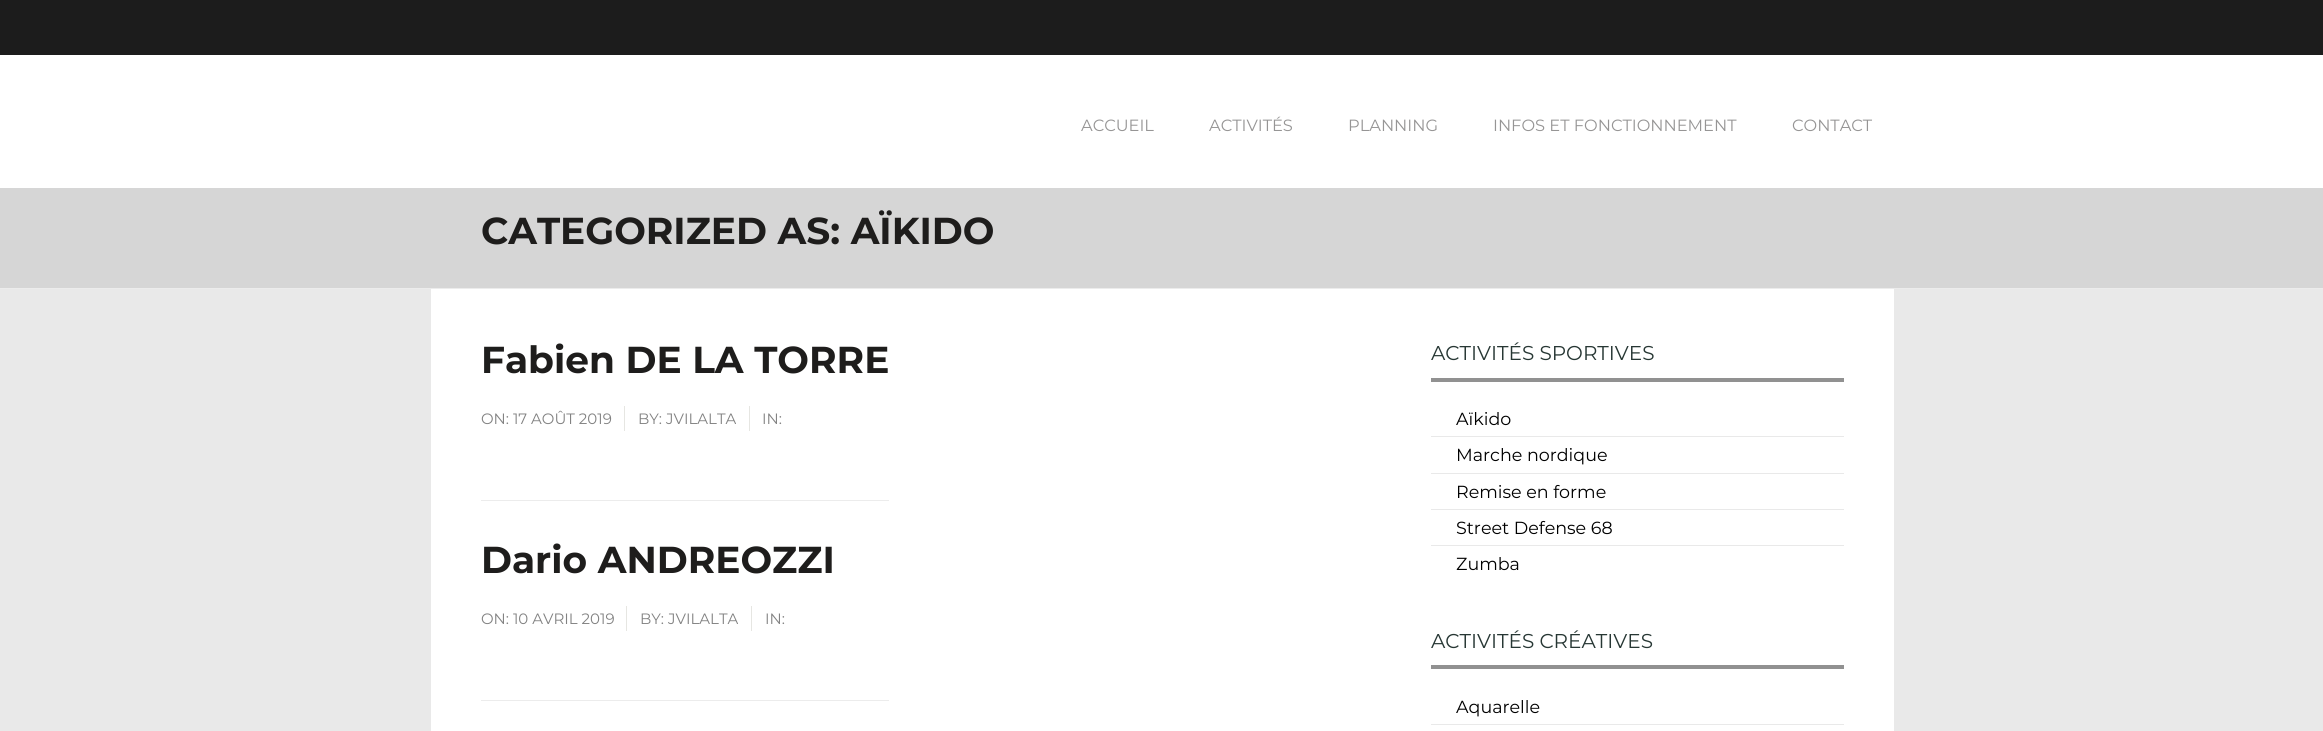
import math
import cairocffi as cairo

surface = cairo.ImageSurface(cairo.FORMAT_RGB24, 2323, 731)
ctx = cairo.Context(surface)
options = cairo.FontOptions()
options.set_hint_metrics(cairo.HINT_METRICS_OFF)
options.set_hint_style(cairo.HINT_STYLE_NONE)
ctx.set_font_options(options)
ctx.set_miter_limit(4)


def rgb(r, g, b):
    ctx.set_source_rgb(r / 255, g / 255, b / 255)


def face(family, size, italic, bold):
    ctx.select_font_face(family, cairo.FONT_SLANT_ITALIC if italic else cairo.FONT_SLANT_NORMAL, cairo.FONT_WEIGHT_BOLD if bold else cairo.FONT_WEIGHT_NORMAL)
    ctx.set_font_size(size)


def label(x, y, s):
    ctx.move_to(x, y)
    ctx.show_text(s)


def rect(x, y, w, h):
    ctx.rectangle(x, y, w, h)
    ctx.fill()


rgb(233, 233, 233)
ctx.paint()
rgb(255, 255, 255)
rect(0, 55, 2323, 133)
rgb(28, 28, 28)
rect(0, 0, 2323, 55)
face('Montserrat', 16.25, 0, 0)
rgb(150, 149, 149)
label(1081, 131, 'ACCUEIL')
label(1209, 131, 'ACTIVITÉS')
label(1348, 131, 'PLANNING')
label(1493, 131, 'INFOS ET FONCTIONNEMENT')
label(1792, 131, 'CONTACT')
rgb(214, 214, 214)
rect(0, 188, 2323, 100)
rgb(236, 236, 236)
rect(0, 288, 2323, 1)
face('Montserrat', 37.5, 0, 1)
rgb(30, 29, 28)
label(481, 244, 'CATEGORIZED AS: AÏKIDO')
rgb(255, 255, 255)
rect(431, 289, 1463, 442)
rgb(236, 236, 236)
rect(481, 500, 408, 1)
rgb(30, 29, 28)
label(481, 373, 'Fabien DE LA TORRE')
rgb(230, 230, 226)
rect(624, 406, 1, 25)
face('Montserrat', 15, 0, 0)
rgb(130, 130, 130)
label(481, 424, 'ON: 17 AOÛT 2019')
rgb(230, 230, 226)
rect(749, 406, 1, 25)
rgb(130, 130, 130)
label(638, 424, 'BY: JVILALTA')
label(762, 424, 'IN:')
rgb(236, 236, 236)
rect(481, 700, 408, 1)
face('Montserrat', 37.5, 0, 1)
rgb(30, 29, 28)
label(481, 573, 'Dario ANDREOZZI')
rgb(230, 230, 226)
rect(626, 606, 1, 25)
face('Montserrat', 15, 0, 0)
rgb(130, 130, 130)
label(481, 624, 'ON: 10 AVRIL 2019')
rgb(230, 230, 226)
rect(751, 606, 1, 25)
rgb(130, 130, 130)
label(640, 624, 'BY: JVILALTA')
label(765, 624, 'IN:')
face('Montserrat', 20, 0, 0)
rgb(39, 55, 52)
label(1431, 360, 'ACTIVITÉS SPORTIVES')
rgb(145, 145, 145)
rect(1431, 378, 413, 4)
rgb(233, 233, 233)
rect(1431, 436, 413, 1)
face('Montserrat', 17.5, 0, 0)
rgb(0, 0, 0)
label(1456, 425, 'Aïkido')
rgb(233, 233, 233)
rect(1431, 473, 413, 1)
rgb(0, 0, 0)
label(1456, 461, 'Marche nordique')
rgb(233, 233, 233)
rect(1431, 509, 413, 1)
rgb(0, 0, 0)
label(1456, 498, 'Remise en forme')
rgb(233, 233, 233)
rect(1431, 545, 413, 1)
rgb(0, 0, 0)
label(1456, 534, 'Street Defense 68')
label(1456, 570, 'Zumba')
face('Montserrat', 20, 0, 0)
rgb(39, 55, 52)
label(1431, 648, 'ACTIVITÉS CRÉATIVES')
rgb(145, 145, 145)
rect(1431, 665, 413, 4)
rgb(233, 233, 233)
rect(1431, 724, 413, 1)
face('Montserrat', 17.5, 0, 0)
rgb(0, 0, 0)
label(1456, 713, 'Aquarelle')
surface.write_to_png('render.png')
